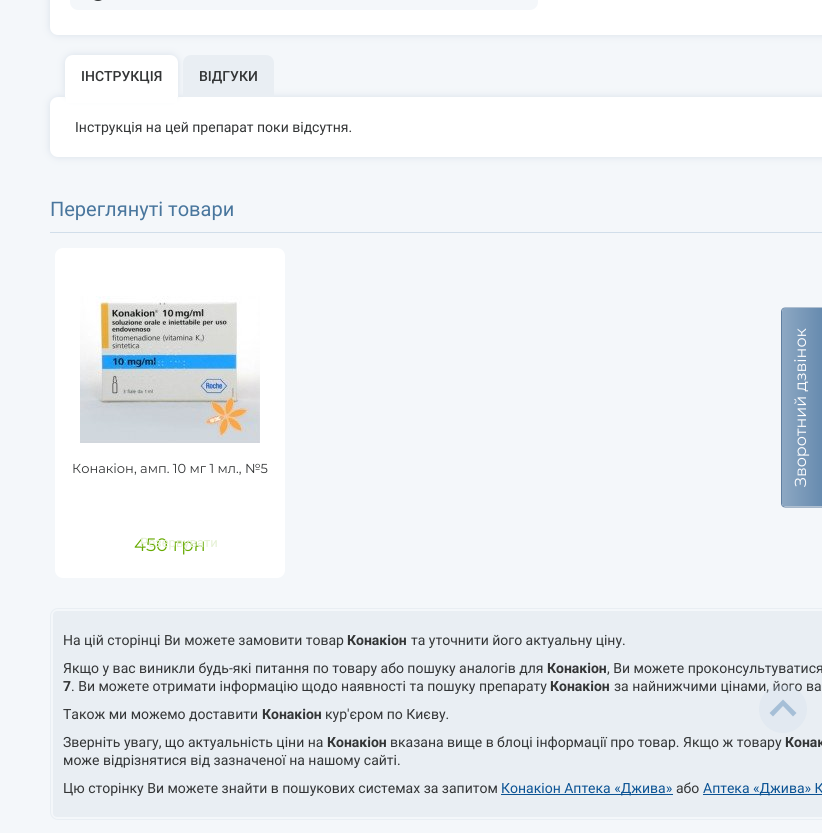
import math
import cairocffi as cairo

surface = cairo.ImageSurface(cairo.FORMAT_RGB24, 822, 833)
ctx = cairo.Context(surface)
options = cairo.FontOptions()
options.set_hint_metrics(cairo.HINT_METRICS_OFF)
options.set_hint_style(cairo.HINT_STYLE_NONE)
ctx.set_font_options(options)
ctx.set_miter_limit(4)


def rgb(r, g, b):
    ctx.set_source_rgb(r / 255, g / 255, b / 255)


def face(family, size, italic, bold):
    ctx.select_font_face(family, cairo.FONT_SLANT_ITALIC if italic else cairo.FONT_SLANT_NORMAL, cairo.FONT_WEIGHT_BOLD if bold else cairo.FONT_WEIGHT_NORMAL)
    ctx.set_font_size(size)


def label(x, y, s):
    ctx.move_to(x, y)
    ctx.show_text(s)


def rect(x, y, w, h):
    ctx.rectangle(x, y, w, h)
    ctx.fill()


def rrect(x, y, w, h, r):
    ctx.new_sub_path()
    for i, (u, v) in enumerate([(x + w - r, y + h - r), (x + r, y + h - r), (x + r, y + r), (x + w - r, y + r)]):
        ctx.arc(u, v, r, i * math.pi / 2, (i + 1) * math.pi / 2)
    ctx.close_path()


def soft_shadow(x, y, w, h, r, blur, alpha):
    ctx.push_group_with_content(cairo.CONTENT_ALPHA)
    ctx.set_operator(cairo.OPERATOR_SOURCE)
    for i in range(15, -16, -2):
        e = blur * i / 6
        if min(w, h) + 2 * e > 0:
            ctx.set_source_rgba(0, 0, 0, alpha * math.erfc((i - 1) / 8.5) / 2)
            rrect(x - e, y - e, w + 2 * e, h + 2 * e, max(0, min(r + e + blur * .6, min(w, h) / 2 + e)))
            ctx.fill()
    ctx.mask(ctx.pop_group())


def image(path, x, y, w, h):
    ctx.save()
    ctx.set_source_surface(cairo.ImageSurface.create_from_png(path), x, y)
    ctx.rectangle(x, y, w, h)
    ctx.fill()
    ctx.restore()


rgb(244, 247, 250)
ctx.paint()
rgb(217, 225, 234)
soft_shadow(50, -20, 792, 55, 8, 4, 1)
rgb(255, 255, 255)
rrect(50, -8, 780, 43, 8)
ctx.fill()
rgb(244, 247, 250)
rrect(70, -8, 468, 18, 8)
ctx.fill()
image('image0.png', 94, 0, 8, 1)
rgb(217, 225, 234)
soft_shadow(50, 97, 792, 60, 8, 4, 1)
rgb(255, 255, 255)
rrect(50, 97, 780, 60, 8)
ctx.fill()
rgb(217, 225, 234)
soft_shadow(65, 55, 113, 42, 8, 4, 1)
rgb(255, 255, 255)
ctx.new_path()
ctx.move_to(73, 55)
ctx.line_to(170, 55)
ctx.curve_to(174.5, 55, 178, 58.5, 178, 63)
ctx.line_to(178, 97)
ctx.line_to(65, 97)
ctx.line_to(65, 63)
ctx.curve_to(65, 58.5, 68.5, 55, 73, 55)
ctx.close_path()
ctx.fill()
face('Roboto Medium', 14, 0, 0)
rgb(51, 53, 54)
label(81, 81, 'ІНСТРУКЦІЯ')
rgb(255, 255, 255)
rect(66, 97, 111, 6)
rgb(233, 238, 243)
ctx.new_path()
ctx.move_to(191, 55)
ctx.line_to(266, 55)
ctx.curve_to(270.5, 55, 274, 58.5, 274, 63)
ctx.line_to(274, 97)
ctx.line_to(183, 97)
ctx.line_to(183, 63)
ctx.curve_to(183, 58.5, 186.5, 55, 191, 55)
ctx.close_path()
ctx.fill()
rgb(51, 53, 54)
label(199, 81, 'ВІДГУКИ')
face('Roboto', 14, 0, 0)
label(75, 132, 'Інструкція на цей препарат поки відсутня.')
rgb(209, 222, 234)
rect(50, 232, 772, 1)
face('Roboto', 20, 0, 0)
rgb(73, 118, 157)
label(50, 216, 'Переглянуті товари')
rgb(255, 255, 255)
rrect(55, 248, 230, 330, 8)
ctx.fill()
image('image1.png', 80, 296, 180, 147)
face('Montserrat', 13, 0, 0)
rgb(51, 53, 54)
label(72, 473, 'Конакіон, амп. 10 мг 1 мл., №5')
face('Montserrat', 18, 0, 0)
rgb(102, 170, 0)
label(134, 551, '450 грн')
face('Roboto', 13, 0, 0)
rgb(229, 241, 212)
label(140, 547, 'Резервувати')
rrect(50.5, 608.5, 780, 211, 7.5)
rgb(233, 238, 243)
ctx.set_line_width(1)
ctx.stroke()
rrect(53, 611, 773, 206, 4)
ctx.fill()
face('Roboto', 14, 0, 0)
rgb(51, 53, 54)
label(63, 645, 'На цій сторінці Ви можете замовити товар')
face('Roboto', 14, 0, 1)
label(347, 645, 'Конакіон')
face('Roboto', 14, 0, 0)
label(411, 645, 'та уточнити його актуальну ціну.')
label(63, 673, 'Якщо у вас виникли будь-які питання по товару або пошуку аналогів для')
face('Roboto', 14, 0, 1)
label(547, 673, 'Конакіон')
face('Roboto', 14, 0, 0)
label(607, 673, ', Ви можете проконсультуватися')
face('Roboto', 14, 0, 1)
label(63, 691, '7')
face('Roboto', 14, 0, 0)
label(71, 691, '. Ви можете отримати інформацію щодо наявності та пошуку препарату')
face('Roboto', 14, 0, 1)
label(550, 691, 'Конакіон')
face('Roboto', 14, 0, 0)
label(614, 691, 'за найнижчими цінами, його ва')
label(63, 719, 'Також ми можемо доставити')
face('Roboto', 14, 0, 1)
label(262, 719, 'Конакіон')
face('Roboto', 14, 0, 0)
label(325, 719, 'кур\'єром по Києву.')
label(63, 747, 'Зверніть увагу, що актуальність ціни на')
face('Roboto', 14, 0, 1)
label(327, 747, 'Конакіон')
face('Roboto', 14, 0, 0)
label(390, 747, 'вказана вище в блоці інформації про товар. Якщо ж товару')
face('Roboto', 14, 0, 1)
label(785, 747, 'Конак')
face('Roboto', 14, 0, 0)
label(63, 765, 'може відрізнятися від зазначеної на нашому сайті.')
label(63, 793, 'Цю сторінку Ви можете знайти в пошукових системах за запитом')
rgb(11, 83, 148)
rect(501, 794, 172, 1)
label(501, 793, 'Конакіон Аптека «Джива»')
rgb(51, 53, 54)
label(676, 793, 'або')
rgb(11, 83, 148)
rect(703, 794, 119, 1)
label(703, 793, 'Аптека «Джива» К')
ctx.new_path()
ctx.move_to(781.5, 503.5)
ctx.line_to(781.5, 311.5)
ctx.curve_to(781.5, 309.5, 783, 308, 785, 308)
ctx.line_to(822.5, 308)
ctx.line_to(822.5, 507)
ctx.line_to(785, 507)
ctx.curve_to(783, 507, 781.5, 505.5, 781.5, 503.5)
ctx.close_path()
rgb(96, 127, 160)
ctx.stroke()
gradient = cairo.LinearGradient(782, 408, 822, 408)
gradient.add_color_stop_rgba(0, 0.553, 0.659, 0.765, 1)
gradient.add_color_stop_rgba(1, 0.404, 0.545, 0.686, 1)
ctx.set_source(gradient)
ctx.new_path()
ctx.move_to(782, 504)
ctx.curve_to(782, 505, 783, 505, 783, 506)
ctx.line_to(822, 506)
ctx.line_to(822, 308)
ctx.line_to(785, 308)
ctx.curve_to(783, 308, 782, 310, 782, 312)
ctx.close_path()
ctx.fill()
face('Montserrat', 16, 0, 0)
rgb(254, 254, 255)
ctx.save()
ctx.translate(806, 487)
ctx.rotate(-90 * math.pi / 180)
label(0, 0, 'Зворотний дзвінок')
ctx.restore()
ctx.set_source_rgba(0.82, 0.871, 0.918, 0.3)
ctx.new_path()
ctx.arc(783, 709, 24, 0, 2 * math.pi)
ctx.fill()
rgb(166, 191, 215)
ctx.new_path()
ctx.move_to(784.5, 701)
ctx.line_to(783, 699.5)
ctx.line_to(769.5, 713)
ctx.line_to(773, 716.5)
ctx.line_to(783, 706)
ctx.line_to(793, 716.5)
ctx.line_to(796.5, 713)
ctx.close_path()
ctx.fill()
surface.write_to_png('render.png')
